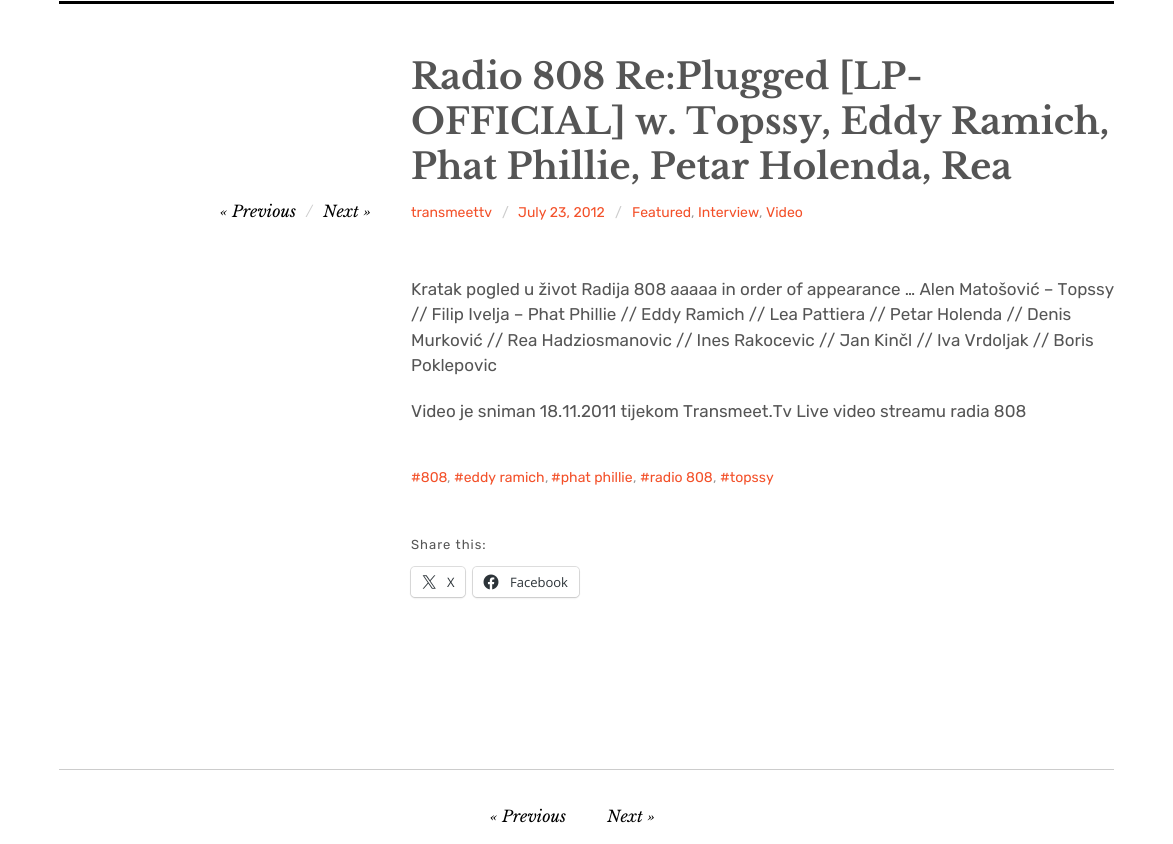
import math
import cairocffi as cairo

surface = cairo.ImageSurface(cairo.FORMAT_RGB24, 1173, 844)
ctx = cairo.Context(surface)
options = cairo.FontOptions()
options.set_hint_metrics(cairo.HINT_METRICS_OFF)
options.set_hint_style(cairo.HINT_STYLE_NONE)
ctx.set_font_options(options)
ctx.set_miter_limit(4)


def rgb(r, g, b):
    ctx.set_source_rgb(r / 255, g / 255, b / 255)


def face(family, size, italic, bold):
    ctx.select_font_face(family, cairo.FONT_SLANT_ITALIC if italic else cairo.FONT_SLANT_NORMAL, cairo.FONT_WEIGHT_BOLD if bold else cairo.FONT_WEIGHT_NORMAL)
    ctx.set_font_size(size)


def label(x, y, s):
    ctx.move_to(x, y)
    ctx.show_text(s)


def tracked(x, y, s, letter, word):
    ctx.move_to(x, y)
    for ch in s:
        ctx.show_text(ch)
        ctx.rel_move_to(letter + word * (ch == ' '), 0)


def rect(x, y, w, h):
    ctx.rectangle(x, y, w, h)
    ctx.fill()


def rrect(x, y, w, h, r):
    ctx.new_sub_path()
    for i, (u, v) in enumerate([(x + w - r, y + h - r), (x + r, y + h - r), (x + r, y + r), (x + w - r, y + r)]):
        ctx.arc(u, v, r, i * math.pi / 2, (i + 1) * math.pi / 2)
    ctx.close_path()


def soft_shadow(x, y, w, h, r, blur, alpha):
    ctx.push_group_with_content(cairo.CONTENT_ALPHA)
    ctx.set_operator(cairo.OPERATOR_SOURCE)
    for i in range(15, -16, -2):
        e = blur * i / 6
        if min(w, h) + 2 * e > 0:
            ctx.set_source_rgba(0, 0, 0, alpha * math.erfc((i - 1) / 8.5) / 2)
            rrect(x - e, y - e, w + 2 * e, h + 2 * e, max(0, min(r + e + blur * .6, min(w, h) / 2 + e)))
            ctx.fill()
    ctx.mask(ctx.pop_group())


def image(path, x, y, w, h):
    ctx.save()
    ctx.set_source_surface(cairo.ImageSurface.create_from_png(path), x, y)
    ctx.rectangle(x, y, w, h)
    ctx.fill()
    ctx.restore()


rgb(255, 255, 255)
ctx.paint()
rgb(0, 0, 0)
rect(59, 1, 1055, 3)
face('Libre Baskerville', 36, 0, 1)
rgb(85, 85, 85)
label(411, 89, 'Radio 808 Re:Plugged [LP-')
label(411, 134, 'OFFICIAL] w. Topssy, Eddy Ramich,')
label(411, 179, 'Phat Phillie, Petar Holenda, Rea')
face('Libre Baskerville', 16, 1, 0)
rgb(0, 0, 0)
label(220, 217, '« Previous')
rgb(204, 204, 204)
label(306, 217, '/')
rgb(0, 0, 0)
label(323, 217, 'Next »')
face('Rubik', 14, 0, 0)
rgb(243, 80, 41)
label(411, 217, 'transmeettv')
rgb(204, 204, 204)
label(502, 217, '/')
rgb(243, 80, 41)
label(518, 217, 'July 23, 2012')
rgb(204, 204, 204)
label(615, 217, '/')
rgb(243, 80, 41)
label(632, 217, 'Featured')
rgb(153, 153, 153)
label(691, 217, ',')
rgb(243, 80, 41)
label(698, 217, 'Interview')
rgb(153, 153, 153)
label(759, 217, ',')
rgb(243, 80, 41)
label(766, 217, 'Video')
face('Rubik', 17, 0, 0)
rgb(85, 85, 85)
label(411, 295, 'Kratak pogled u život Radija 808 aaaaa in order of appearance … Alen Matošović – Topssy')
label(411, 320, '// Filip Ivelja – Phat Phillie // Eddy Ramich // Lea Pattiera // Petar Holenda // Denis')
label(411, 346, 'Murković // Rea Hadziosmanovic // Ines Rakocevic // Jan Kinčl // Iva Vrdoljak // Boris')
label(411, 371, 'Poklepovic')
label(411, 417, 'Video je sniman 18.11.2011 tijekom Transmeet.Tv Live video streamu radia 808')
face('Rubik', 14, 0, 0)
rgb(243, 80, 41)
label(411, 482, '#808')
rgb(153, 153, 153)
label(447, 482, ',')
rgb(243, 80, 41)
label(454, 482, '#eddy ramich')
rgb(153, 153, 153)
label(545, 482, ',')
rgb(243, 80, 41)
label(551, 482, '#phat phillie')
rgb(153, 153, 153)
label(633, 482, ',')
rgb(243, 80, 41)
label(640, 482, '#radio 808')
rgb(153, 153, 153)
label(713, 482, ',')
rgb(243, 80, 41)
label(720, 482, '#topssy')
face('Rubik', 13, 0, 0)
rgb(85, 85, 85)
tracked(411, 549, 'Share this:', 1, 0)
rrect(410.5, 566.5, 55, 31, 4.5)
rgb(224, 224, 224)
ctx.set_line_width(1)
ctx.stroke()
rgb(0, 0, 0)
soft_shadow(411, 568, 54, 30, 4, 1, 0.12)
rgb(255, 255, 255)
rrect(411, 567, 54, 30, 4)
ctx.fill()
image('image0.png', 422, 575, 14, 14)
face('Open Sans', 13, 0, 0)
rgb(44, 51, 56)
label(447, 587, 'X')
rrect(472.5, 566.5, 107, 31, 4.5)
rgb(224, 224, 224)
ctx.stroke()
rgb(0, 0, 0)
soft_shadow(473, 568, 106, 30, 4, 1, 0.12)
rgb(255, 255, 255)
rrect(473, 567, 106, 30, 4)
ctx.fill()
image('image1.png', 483, 574, 16, 16)
rgb(44, 51, 56)
label(510, 587, 'Facebook')
rgb(204, 204, 204)
rect(59, 769, 1055, 1)
face('Libre Baskerville', 16, 1, 0)
rgb(0, 0, 0)
label(490, 822, '« Previous')
label(607, 822, 'Next »')
surface.write_to_png('render.png')
